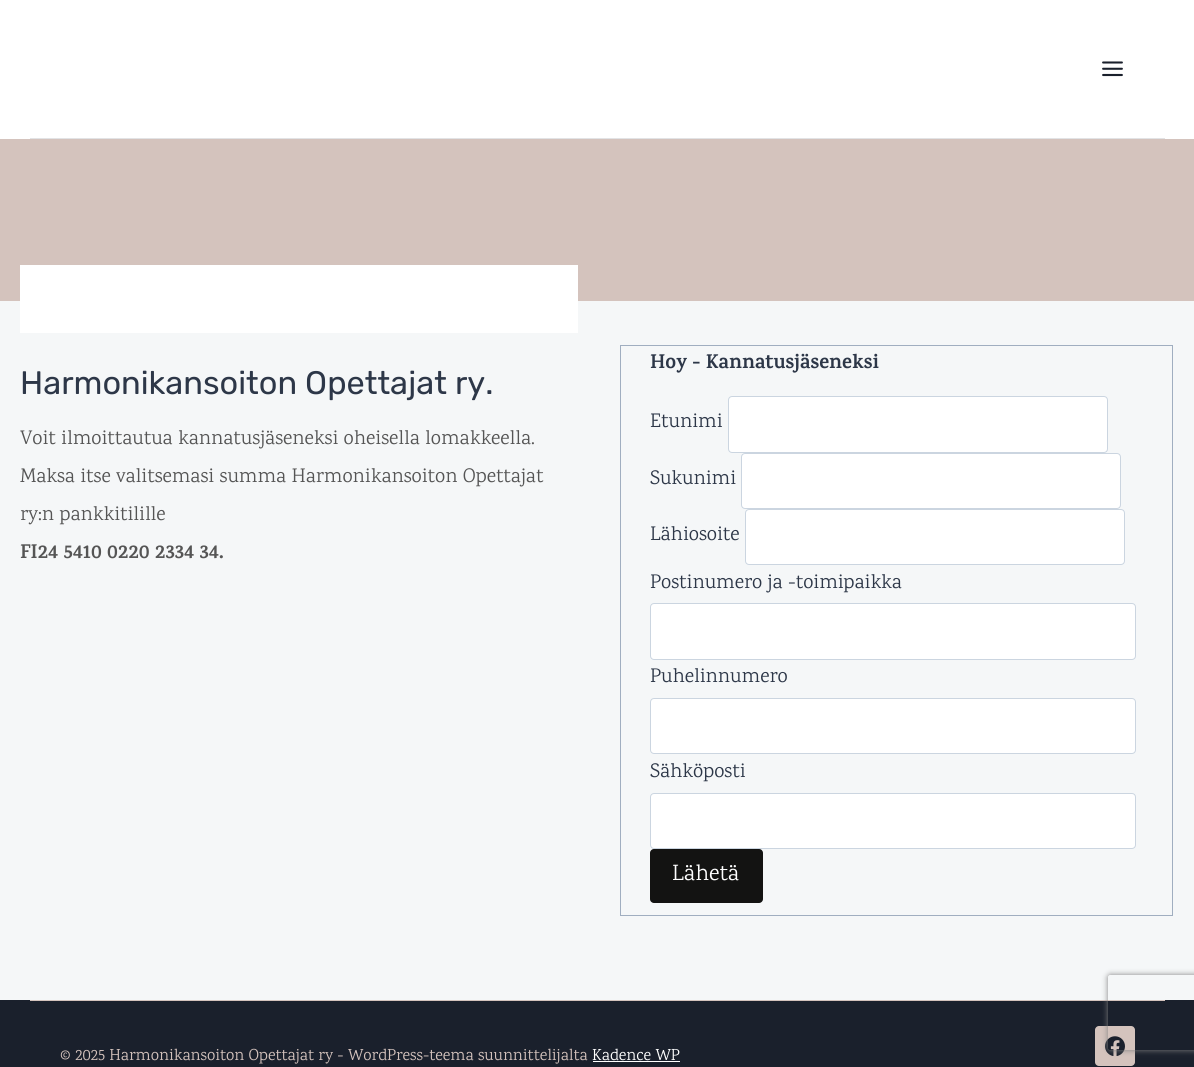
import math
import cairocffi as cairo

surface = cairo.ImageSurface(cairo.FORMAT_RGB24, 1194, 1067)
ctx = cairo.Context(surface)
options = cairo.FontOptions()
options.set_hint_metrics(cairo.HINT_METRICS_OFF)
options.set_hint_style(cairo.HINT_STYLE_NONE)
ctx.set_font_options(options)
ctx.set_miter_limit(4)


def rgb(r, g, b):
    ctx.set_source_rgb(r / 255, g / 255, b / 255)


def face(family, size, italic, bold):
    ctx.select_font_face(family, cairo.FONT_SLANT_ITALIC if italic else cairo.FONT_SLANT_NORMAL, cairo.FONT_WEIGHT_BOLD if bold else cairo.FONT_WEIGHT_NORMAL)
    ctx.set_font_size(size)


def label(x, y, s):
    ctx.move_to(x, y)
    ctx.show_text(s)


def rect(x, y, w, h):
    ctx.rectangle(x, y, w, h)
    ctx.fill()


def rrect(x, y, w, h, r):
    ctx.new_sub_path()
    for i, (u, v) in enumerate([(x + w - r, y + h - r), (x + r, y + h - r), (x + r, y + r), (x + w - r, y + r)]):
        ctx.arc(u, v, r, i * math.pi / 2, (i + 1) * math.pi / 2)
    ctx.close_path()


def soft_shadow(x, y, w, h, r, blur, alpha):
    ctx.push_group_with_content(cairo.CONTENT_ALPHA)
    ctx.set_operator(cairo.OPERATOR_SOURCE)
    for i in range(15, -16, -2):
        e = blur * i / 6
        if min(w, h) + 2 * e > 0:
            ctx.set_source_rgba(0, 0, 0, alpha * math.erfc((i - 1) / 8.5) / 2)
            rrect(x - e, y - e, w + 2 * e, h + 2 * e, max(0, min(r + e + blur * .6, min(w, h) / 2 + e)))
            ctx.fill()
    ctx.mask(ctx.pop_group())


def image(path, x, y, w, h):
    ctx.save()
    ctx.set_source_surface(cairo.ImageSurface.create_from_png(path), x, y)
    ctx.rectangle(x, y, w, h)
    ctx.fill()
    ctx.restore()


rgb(245, 247, 248)
ctx.paint()
rgb(255, 255, 255)
rect(0, 0, 1194, 139)
rgb(226, 227, 229)
rect(30, 138, 1135, 1)
image('image0.png', 1102, 61, 21, 16)
rgb(212, 195, 189)
rect(0, 139, 1194, 162)
rgb(255, 255, 255)
rect(20, 265, 558, 68)
face('Rubik', 32.5, 0, 0)
rgb(45, 55, 72)
label(20, 394, 'Harmonikansoiton Opettajat ry.')
face('Karma', 20, 0, 0)
rgb(85, 85, 85)
label(20, 444, 'Voit ilmoittautua kannatusjäseneksi oheisella lomakkeella.')
label(20, 482, 'Maksa itse valitsemasi summa Harmonikansoiton Opettajat')
label(20, 520, 'ry:n pankkitilille')
face('Karma', 20, 0, 1)
label(20, 558, 'FI24 5410 0220 2334 34.')
ctx.rectangle(620.5, 345.5, 552, 570)
rgb(160, 174, 192)
ctx.set_line_width(1)
ctx.stroke()
rgb(45, 55, 72)
label(650, 368, 'Hoy - Kannatusjäseneksi')
face('Karma', 20, 0, 0)
label(650, 427, 'Etunimi')
rgb(255, 255, 255)
rrect(728.5, 396.5, 379, 56, 3.5)
ctx.fill_preserve()
rgb(203, 213, 224)
ctx.stroke()
rgb(45, 55, 72)
label(650, 484, 'Sukunimi')
rgb(255, 255, 255)
rrect(741.5, 453.5, 379, 55, 3.5)
ctx.fill_preserve()
rgb(203, 213, 224)
ctx.stroke()
rgb(45, 55, 72)
label(650, 540, 'Lähiosoite')
rgb(255, 255, 255)
rrect(745.5, 509.5, 379, 55, 3.5)
ctx.fill_preserve()
rgb(203, 213, 224)
ctx.stroke()
rgb(45, 55, 72)
label(650, 588, 'Postinumero ja -toimipaikka')
rgb(255, 255, 255)
rrect(650.5, 603.5, 485, 56, 3.5)
ctx.fill_preserve()
rgb(203, 213, 224)
ctx.stroke()
rgb(45, 55, 72)
label(650, 682, 'Puhelinnumero')
rgb(255, 255, 255)
rrect(650.5, 698.5, 485, 55, 3.5)
ctx.fill_preserve()
rgb(203, 213, 224)
ctx.stroke()
rgb(45, 55, 72)
label(650, 777, 'Sähköposti')
rgb(255, 255, 255)
rrect(650.5, 793.5, 485, 55, 3.5)
ctx.fill_preserve()
rgb(203, 213, 224)
ctx.stroke()
rgb(19, 19, 18)
rrect(650, 849, 113, 54, 4)
ctx.fill()
face('Karma', 22.5, 0, 0)
rgb(255, 255, 255)
label(672, 880, 'Lähetä')
rgb(26, 32, 44)
rect(0, 1000, 1194, 67)
rgb(212, 195, 189)
rect(30, 1000, 1135, 1)
face('Karma', 16.25, 0, 0)
label(60, 1060, '© 2025 Harmonikansoiton Opettajat ry - WordPress-teema suunnittelijalta')
rgb(255, 255, 255)
label(592, 1060, 'Kadence WP')
rect(593, 1061, 87, 1)
rgb(212, 195, 189)
rrect(1095, 1026, 40, 40, 4)
ctx.fill()
image('image1.png', 1105, 1036, 20, 20)
ctx.save()
ctx.set_fill_rule(cairo.FILL_RULE_EVEN_ODD)
ctx.new_path()
ctx.move_to(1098, 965)
ctx.line_to(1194, 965)
ctx.line_to(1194, 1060)
ctx.line_to(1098, 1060)
ctx.close_path()
ctx.move_to(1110.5, 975)
ctx.line_to(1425.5, 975)
ctx.curve_to(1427, 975, 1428, 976, 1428, 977.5)
ctx.line_to(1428, 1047.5)
ctx.curve_to(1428, 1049, 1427, 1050, 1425.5, 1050)
ctx.line_to(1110.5, 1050)
ctx.curve_to(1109, 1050, 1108, 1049, 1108, 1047.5)
ctx.line_to(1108, 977.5)
ctx.curve_to(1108, 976, 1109, 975, 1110.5, 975)
ctx.close_path()
ctx.clip()
rgb(128, 128, 128)
soft_shadow(1108, 975, 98, 75, 2.5, 3, 1)
ctx.restore()
surface.write_to_png('render.png')
